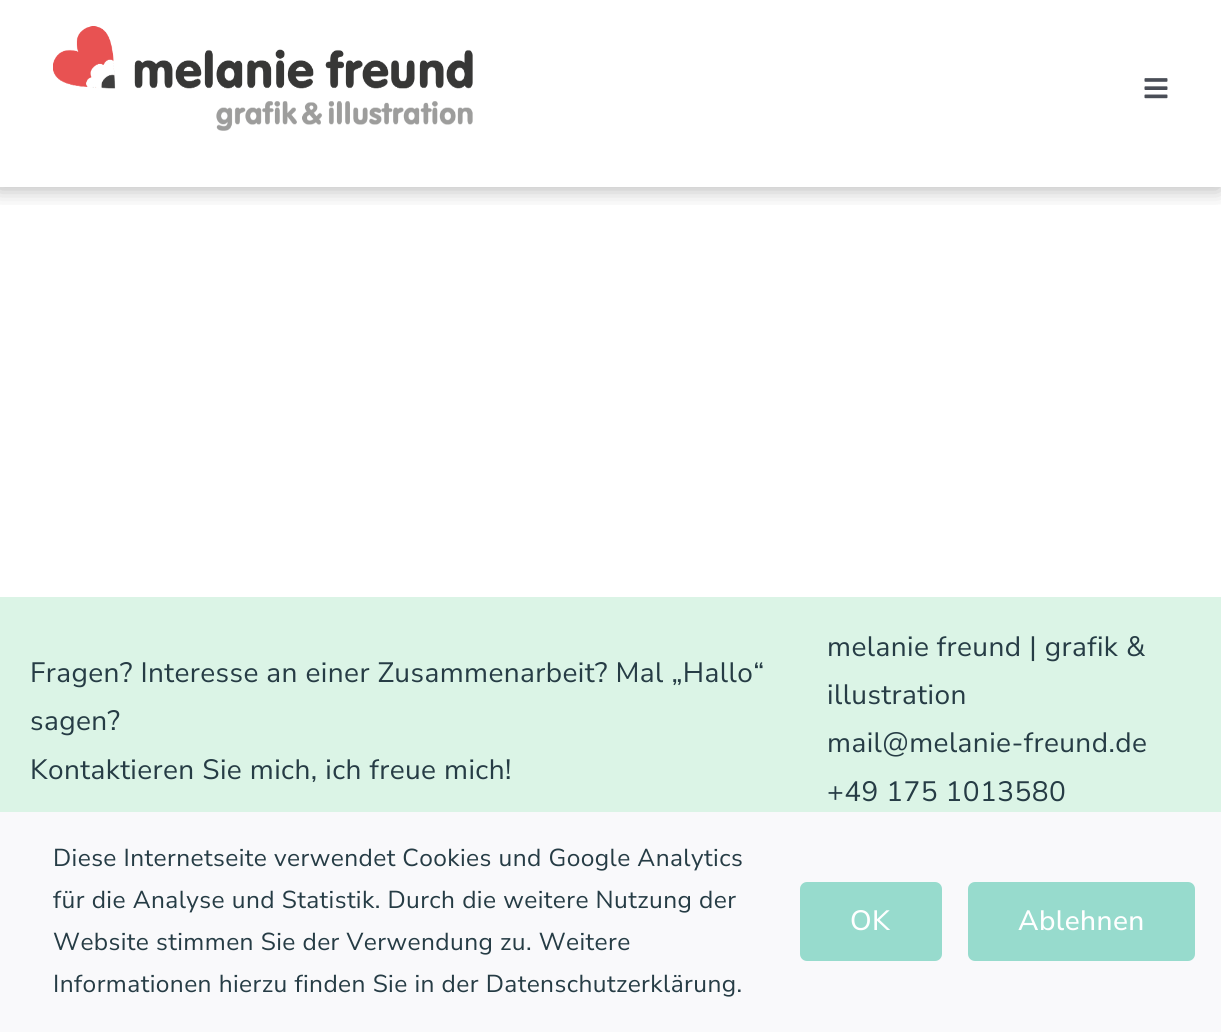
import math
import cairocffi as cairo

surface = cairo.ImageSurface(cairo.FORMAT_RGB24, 1221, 1032)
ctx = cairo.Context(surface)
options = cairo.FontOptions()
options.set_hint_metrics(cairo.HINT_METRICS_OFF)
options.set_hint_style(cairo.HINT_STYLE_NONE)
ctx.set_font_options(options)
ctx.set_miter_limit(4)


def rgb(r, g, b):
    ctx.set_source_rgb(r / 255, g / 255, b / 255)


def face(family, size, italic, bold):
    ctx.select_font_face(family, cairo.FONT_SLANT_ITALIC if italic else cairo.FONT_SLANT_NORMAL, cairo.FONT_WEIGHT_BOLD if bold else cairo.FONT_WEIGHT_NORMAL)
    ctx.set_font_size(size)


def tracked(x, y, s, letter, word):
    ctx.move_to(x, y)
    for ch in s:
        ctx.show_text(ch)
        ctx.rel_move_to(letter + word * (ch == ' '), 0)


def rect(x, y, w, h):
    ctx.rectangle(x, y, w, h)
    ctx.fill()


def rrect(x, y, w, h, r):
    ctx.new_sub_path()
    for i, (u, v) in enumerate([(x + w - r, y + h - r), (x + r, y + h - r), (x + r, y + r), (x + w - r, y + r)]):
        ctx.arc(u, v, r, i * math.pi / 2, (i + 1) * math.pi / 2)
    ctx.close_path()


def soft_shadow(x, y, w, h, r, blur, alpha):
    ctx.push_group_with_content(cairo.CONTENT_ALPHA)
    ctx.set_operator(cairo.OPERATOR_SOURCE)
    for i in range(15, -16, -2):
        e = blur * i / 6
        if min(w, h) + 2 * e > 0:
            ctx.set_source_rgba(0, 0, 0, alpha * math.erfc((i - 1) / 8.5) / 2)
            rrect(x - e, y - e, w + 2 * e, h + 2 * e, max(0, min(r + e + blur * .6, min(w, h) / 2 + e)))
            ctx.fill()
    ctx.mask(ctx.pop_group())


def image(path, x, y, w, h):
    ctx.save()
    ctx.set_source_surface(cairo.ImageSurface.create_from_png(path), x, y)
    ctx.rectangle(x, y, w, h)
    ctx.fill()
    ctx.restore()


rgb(255, 255, 255)
ctx.paint()
ctx.save()
ctx.rectangle(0, 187, 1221, 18)
ctx.clip()
rgb(0, 0, 0)
soft_shadow(-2, 2, 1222, 187, 0, 10.5, 0.3)
ctx.restore()
image('image0.png', 53, 26, 420, 105)
image('image1.png', 1144, 78, 24, 21)
rgb(219, 244, 230)
rect(0, 597, 1221, 215)
face('Nunito Sans', 28, 0, 0)
rgb(38, 60, 69)
tracked(30, 682, 'Fragen? Interesse an einer Zusammenarbeit? Mal „Hallo“', 0.42, 0)
tracked(30, 730, 'sagen?', 0.42, 0)
tracked(30, 779, 'Kontaktieren Sie mich, ich freue mich!', 0.42, 0)
tracked(827, 656, 'melanie freund | grafik &', 0.42, 0)
tracked(827, 704, 'illustration', 0.42, 0)
tracked(827, 752, 'mail@melanie-freund.de', 0.42, 0)
tracked(827, 801, '+49 175 1013580', 0.42, 0)
rgb(249, 249, 251)
rect(0, 812, 1221, 220)
face('Nunito Sans', 24.5, 0, 0)
rgb(38, 60, 69)
tracked(53, 866, 'Diese Internetseite verwendet Cookies und Google Analytics', 0.42, 0)
tracked(53, 908, 'für die Analyse und Statistik. Durch die weitere Nutzung der', 0.42, 0)
tracked(53, 950, 'Website stimmen Sie der Verwendung zu. Weitere', 0.42, 0)
tracked(53, 992, 'Informationen hierzu finden Sie in der Datenschutzerklärung.', 0.42, 0)
rgb(151, 219, 205)
rrect(800, 882, 142, 79, 7)
ctx.fill()
face('Nunito Sans Medium', 28, 0, 0)
rgb(255, 255, 255)
tracked(850, 930, 'OK', 0.42, 0)
rgb(151, 219, 205)
rrect(968, 882, 227, 79, 7)
ctx.fill()
rgb(255, 255, 255)
tracked(1018, 930, 'Ablehnen', 0.42, 0)
surface.write_to_png('render.png')
